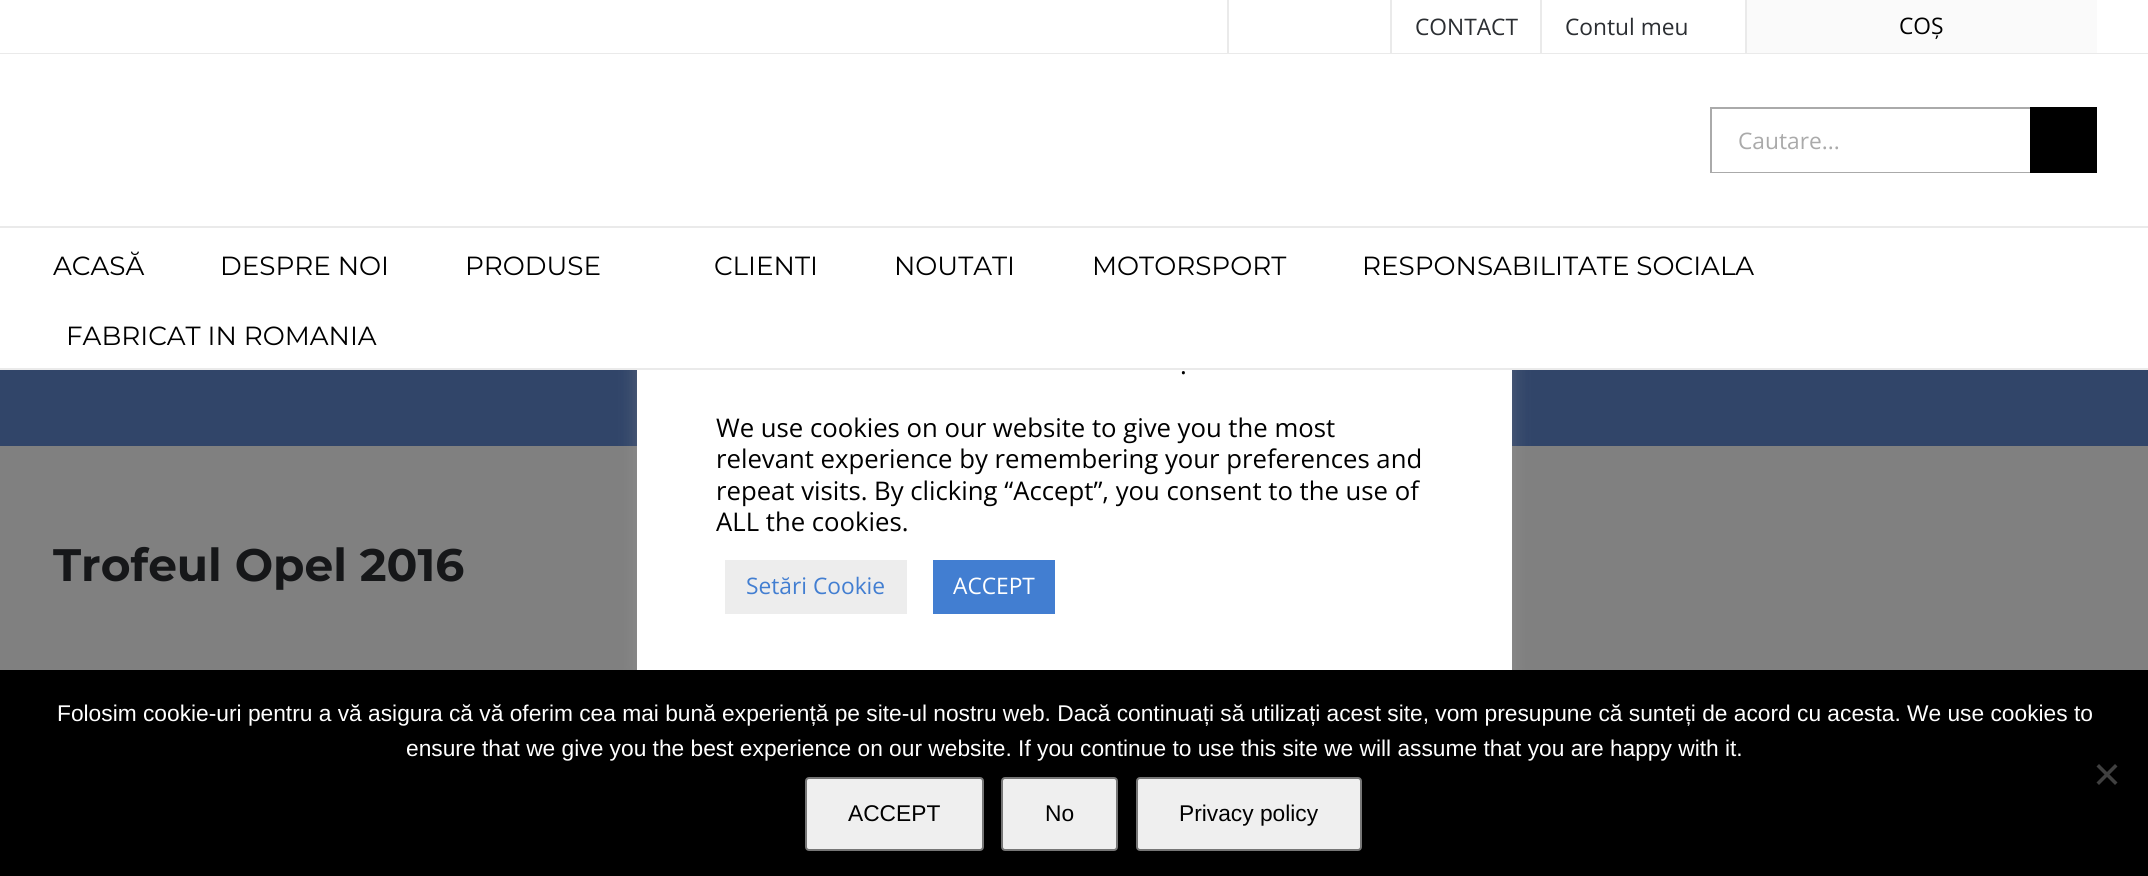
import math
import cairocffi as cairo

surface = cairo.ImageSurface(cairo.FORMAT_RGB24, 2148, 876)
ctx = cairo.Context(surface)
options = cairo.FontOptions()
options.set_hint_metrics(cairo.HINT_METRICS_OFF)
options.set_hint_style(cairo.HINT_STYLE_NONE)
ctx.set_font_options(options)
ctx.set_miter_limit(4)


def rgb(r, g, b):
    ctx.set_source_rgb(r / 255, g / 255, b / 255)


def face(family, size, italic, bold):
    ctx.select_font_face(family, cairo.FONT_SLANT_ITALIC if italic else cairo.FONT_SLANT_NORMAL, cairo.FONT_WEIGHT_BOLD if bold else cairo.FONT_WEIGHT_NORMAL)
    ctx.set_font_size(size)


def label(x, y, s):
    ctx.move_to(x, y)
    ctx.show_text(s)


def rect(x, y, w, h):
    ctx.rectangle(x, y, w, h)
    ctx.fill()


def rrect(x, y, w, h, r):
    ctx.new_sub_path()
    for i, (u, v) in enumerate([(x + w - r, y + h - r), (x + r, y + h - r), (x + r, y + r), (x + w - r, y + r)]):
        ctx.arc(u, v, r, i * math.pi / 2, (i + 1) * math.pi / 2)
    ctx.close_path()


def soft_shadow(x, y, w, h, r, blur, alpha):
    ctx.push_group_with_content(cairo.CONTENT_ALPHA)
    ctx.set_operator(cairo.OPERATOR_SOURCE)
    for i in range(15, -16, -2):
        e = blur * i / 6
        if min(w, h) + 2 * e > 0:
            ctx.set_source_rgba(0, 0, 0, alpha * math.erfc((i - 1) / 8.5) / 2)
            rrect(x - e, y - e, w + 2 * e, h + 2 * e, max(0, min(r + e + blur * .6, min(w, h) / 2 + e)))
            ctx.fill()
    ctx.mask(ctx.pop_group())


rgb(128, 128, 128)
ctx.paint()
rgb(255, 255, 255)
rect(0, 0, 2148, 53)
rgb(234, 234, 234)
rect(0, 53, 2148, 1)
rect(1227, 0, 2, 53)
rect(1390, 0, 2, 53)
face('Open Sans', 22.75, 0, 0)
rgb(43, 46, 50)
label(1415, 35, 'CONTACT')
rgb(234, 234, 234)
rect(1540, 0, 2, 53)
rgb(43, 46, 50)
label(1565, 35, 'Contul meu')
rgb(234, 234, 234)
rect(1745, 0, 2, 53)
rgb(250, 250, 250)
rect(1747, 0, 350, 53)
rgb(0, 0, 0)
label(1899, 34, 'COȘ')
rgb(49, 69, 105)
rect(0, 370, 2148, 76)
rgb(172, 171, 171)
soft_shadow(637, 165, 875, 512, 5, 9, 0.3)
rgb(255, 255, 255)
rect(0, 54, 2148, 172)
rgb(234, 234, 234)
rect(0, 226, 2148, 2)
rgb(170, 170, 170)
rect(1710, 107, 320, 2)
rect(1710, 172, 320, 1)
rect(1710, 107, 2, 66)
label(1738, 149, 'Cautare...')
rgb(0, 0, 0)
rect(2030, 107, 67, 66)
rgb(255, 255, 255)
rect(0, 228, 2148, 140)
rgb(234, 234, 234)
rect(0, 368, 2148, 2)
face('Montserrat', 26.25, 0, 0)
rgb(0, 0, 0)
label(53, 275, 'ACASĂ')
label(220, 275, 'DESPRE NOI')
label(465, 275, 'PRODUSE')
label(714, 275, 'CLIENTI')
label(894, 275, 'NOUTATI')
label(1092, 275, 'MOTORSPORT')
label(1362, 275, 'RESPONSABILITATE SOCIALA')
label(66, 345, 'FABRICAT IN ROMANIA')
face('Montserrat', 45.5, 0, 1)
rgb(22, 23, 25)
label(53, 581, 'Trofeul Opel 2016')
rgb(255, 255, 255)
rect(637, 370, 875, 300)
face('Open Sans', 25.7, 0, 0)
rgb(0, 0, 0)
label(1180, 374, '.')
label(716, 437, 'We use cookies on our website to give you the most')
label(716, 468, 'relevant experience by remembering your preferences and')
label(716, 500, 'repeat visits. By clicking “Accept”, you consent to the use of')
label(716, 531, 'ALL the cookies.')
rgb(237, 237, 237)
rect(725, 560, 182, 54)
face('Open Sans', 22.75, 0, 0)
rgb(66, 126, 209)
label(746, 594, 'Setări Cookie')
rect(933, 560, 122, 54)
rgb(255, 255, 255)
label(953, 594, 'ACCEPT')
rgb(0, 0, 0)
rect(0, 670, 2148, 206)
face('Liberation Sans', 22.75, 0, 0)
rgb(255, 255, 255)
label(57, 721, 'Folosim cookie-uri pentru a vă asigura că vă oferim cea mai bună experiență pe site-ul nostru web. Dacă continuați să utilizați acest site, vom presupune că sunteți de acord cu acesta. We use cookies to')
label(406, 756, 'ensure that we give you the best experience on our website. If you continue to use this site we will assume that you are happy with it.')
rgb(64, 64, 64)
ctx.new_path()
ctx.move_to(2115, 764)
ctx.line_to(2117.5, 766.5)
ctx.line_to(2099, 785)
ctx.line_to(2096.5, 782.5)
ctx.close_path()
ctx.fill()
ctx.new_path()
ctx.move_to(2096.5, 766.5)
ctx.line_to(2099, 764)
ctx.line_to(2117.5, 782.5)
ctx.line_to(2115, 785)
ctx.close_path()
ctx.fill()
rgb(239, 239, 239)
rrect(806, 778, 177, 72, 3)
ctx.fill_preserve()
rgb(118, 118, 118)
ctx.stroke()
rgb(0, 0, 0)
label(848, 821, 'ACCEPT')
rgb(239, 239, 239)
rrect(1002, 778, 115, 72, 3)
ctx.fill_preserve()
rgb(118, 118, 118)
ctx.stroke()
rgb(0, 0, 0)
label(1045, 821, 'No')
rgb(239, 239, 239)
rrect(1137, 778, 224, 72, 3)
ctx.fill_preserve()
rgb(118, 118, 118)
ctx.stroke()
rgb(0, 0, 0)
label(1179, 821, 'Privacy policy')
surface.write_to_png('render.png')
